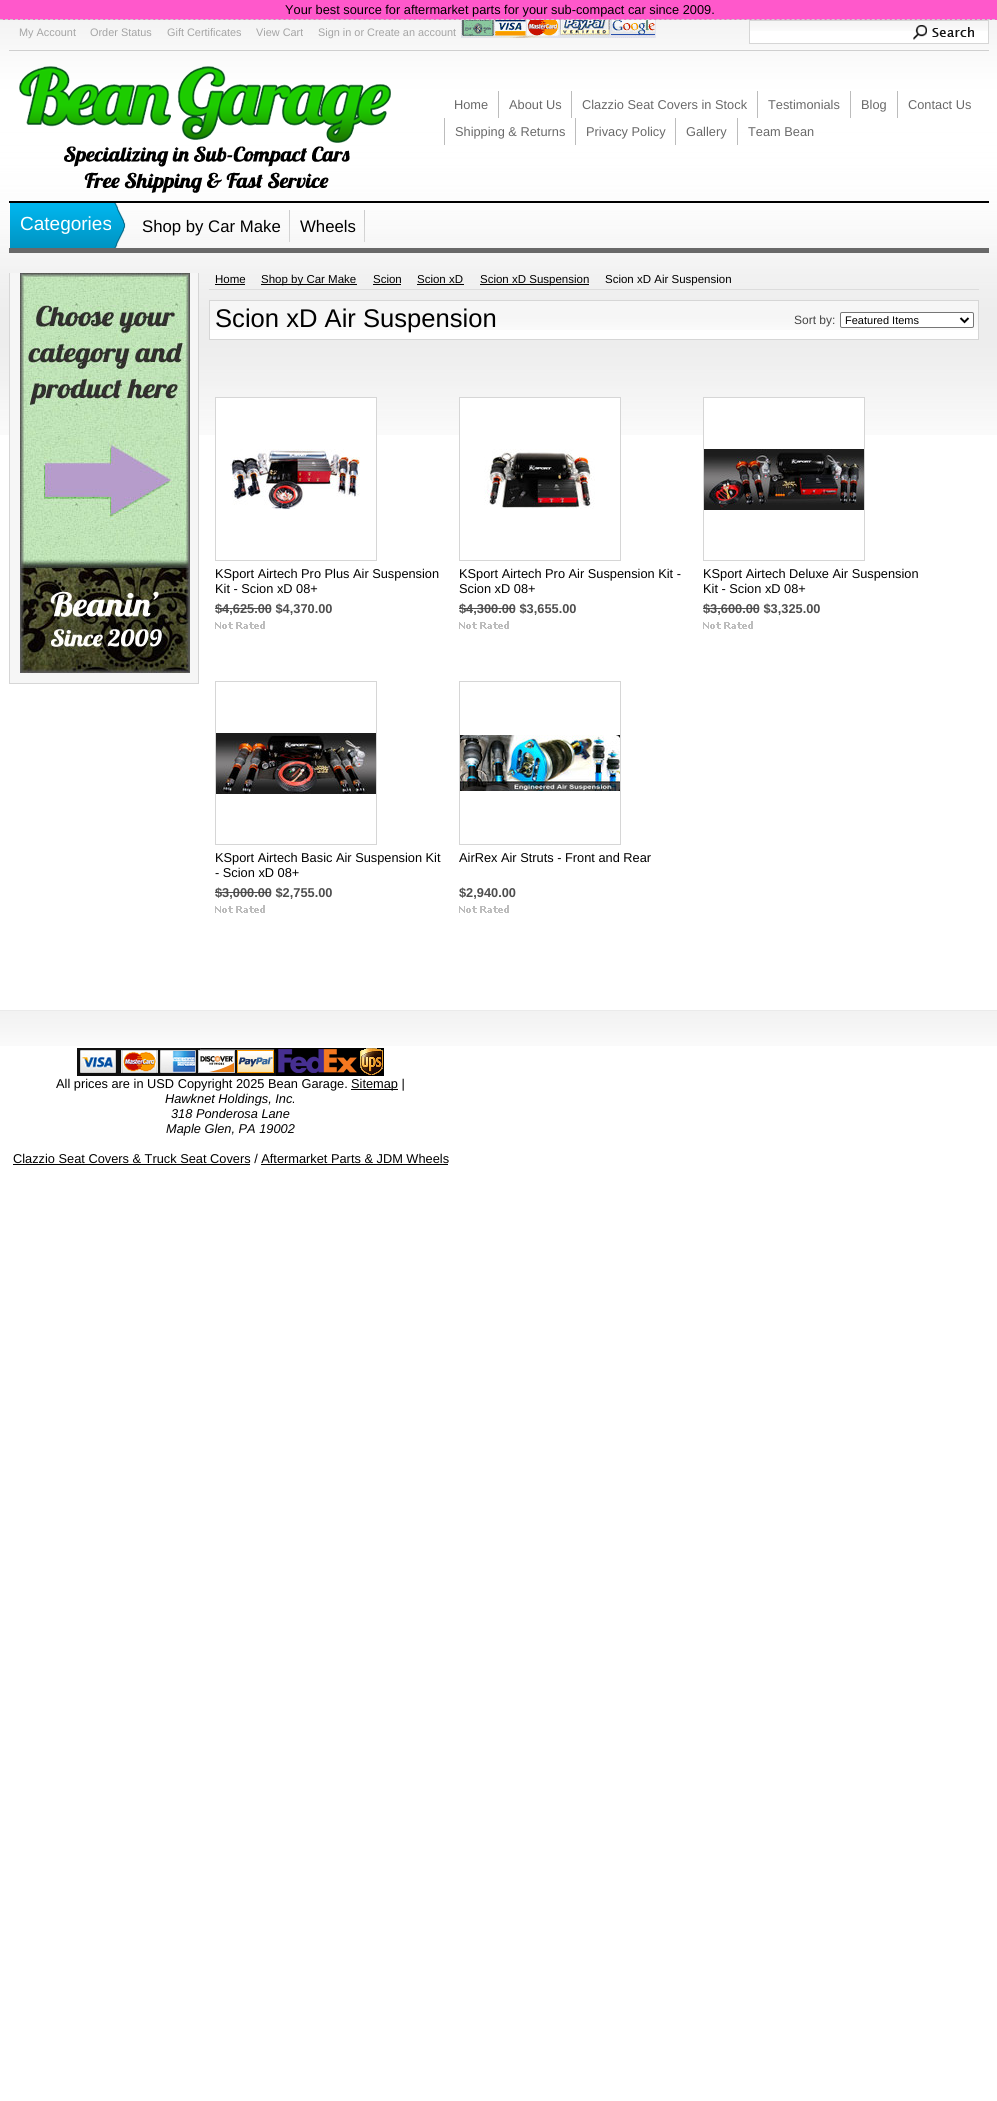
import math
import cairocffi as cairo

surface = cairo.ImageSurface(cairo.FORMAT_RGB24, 997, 2101)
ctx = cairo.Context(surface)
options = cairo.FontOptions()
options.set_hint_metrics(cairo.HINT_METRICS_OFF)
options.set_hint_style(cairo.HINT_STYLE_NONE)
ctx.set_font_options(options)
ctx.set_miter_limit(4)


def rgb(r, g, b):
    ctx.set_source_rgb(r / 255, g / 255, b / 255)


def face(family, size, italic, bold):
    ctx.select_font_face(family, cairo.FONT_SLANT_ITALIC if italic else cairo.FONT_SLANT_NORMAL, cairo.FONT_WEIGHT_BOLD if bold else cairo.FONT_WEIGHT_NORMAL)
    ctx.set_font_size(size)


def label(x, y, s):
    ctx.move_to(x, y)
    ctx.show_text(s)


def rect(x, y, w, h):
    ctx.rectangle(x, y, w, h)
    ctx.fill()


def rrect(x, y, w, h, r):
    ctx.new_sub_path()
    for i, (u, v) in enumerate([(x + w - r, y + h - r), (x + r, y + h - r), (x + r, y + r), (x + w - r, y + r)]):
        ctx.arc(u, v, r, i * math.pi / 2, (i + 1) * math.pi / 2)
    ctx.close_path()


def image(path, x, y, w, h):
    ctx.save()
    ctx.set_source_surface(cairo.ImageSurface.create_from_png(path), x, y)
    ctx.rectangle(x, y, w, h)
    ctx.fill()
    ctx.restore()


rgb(255, 255, 255)
ctx.paint()
image('image0.png', 0, 20, 997, 415)
rgb(255, 88, 203)
rect(0, 0, 997, 20)
ctx.new_path()
ctx.move_to(0, 19.5)
ctx.line_to(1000, 19.5)
rgb(204, 204, 204)
ctx.set_line_width(1)
ctx.set_dash([3, 2.01])
ctx.stroke()
face('Liberation Sans', 12.8, 0, 0)
rgb(0, 0, 0)
label(285, 14, 'Your best source for aftermarket parts for your sub-compact car since 2009.')
rgb(207, 207, 207)
rect(9, 50, 980, 1)
face('Liberation Sans', 10.9, 0, 0)
rgb(165, 165, 165)
label(19, 36, 'My Account')
label(90, 36, 'Order Status')
label(167, 36, 'Gift Certificates')
label(256, 36, 'View Cart')
label(318, 36, 'Sign in or Create an account')
image('image1.png', 461, 20, 195, 18)
rgb(255, 255, 255)
rect(750, 31, 238, 12)
image('image2.png', 750, 21, 238, 10)
ctx.rectangle(749.5, 20.5, 239, 23)
rgb(214, 214, 214)
ctx.set_dash([])
ctx.stroke()
image('image3.png', 913, 25, 61, 15)
image('image4.png', 19, 66, 372, 127)
face('Liberation Sans', 12.8, 0, 0)
rgb(105, 105, 105)
label(454, 109, 'Home')
rgb(188, 188, 188)
rect(498, 91, 1, 27)
rgb(105, 105, 105)
label(509, 109, 'About Us')
rgb(188, 188, 188)
rect(571, 91, 1, 27)
rgb(105, 105, 105)
label(582, 109, 'Clazzio Seat Covers in Stock')
rgb(188, 188, 188)
rect(757, 91, 1, 27)
rgb(105, 105, 105)
label(768, 109, 'Testimonials')
rgb(188, 188, 188)
rect(850, 91, 1, 27)
rgb(105, 105, 105)
label(861, 109, 'Blog')
rgb(188, 188, 188)
rect(897, 91, 1, 27)
rgb(105, 105, 105)
label(908, 109, 'Contact Us')
rgb(188, 188, 188)
rect(444, 118, 1, 27)
rgb(105, 105, 105)
label(455, 136, 'Shipping & Returns')
rgb(188, 188, 188)
rect(575, 118, 1, 27)
rgb(105, 105, 105)
label(586, 136, 'Privacy Policy')
rgb(188, 188, 188)
rect(675, 118, 1, 27)
rgb(105, 105, 105)
label(686, 136, 'Gallery')
rgb(188, 188, 188)
rect(737, 118, 1, 27)
rgb(105, 105, 105)
label(748, 136, 'Team Bean')
rgb(0, 0, 0)
rect(9, 201, 980, 2)
image('image5.png', 10, 203, 116, 45)
face('Liberation Sans', 19, 0, 0)
rgb(255, 255, 255)
label(20, 230, 'Categories')
image('image6.png', 289, 210, 1, 32)
face('Liberation Sans', 16.75, 0, 0)
rgb(0, 0, 0)
label(142, 232, 'Shop by Car Make')
image('image6.png', 364, 210, 1, 32)
label(300, 232, 'Wheels')
rgb(105, 105, 105)
rect(9, 248, 980, 5)
rgb(246, 246, 246)
rect(10, 273, 188, 410)
rgb(214, 214, 214)
rect(198, 273, 1, 411)
rect(9, 683, 190, 1)
rect(9, 273, 1, 411)
image('image7.png', 20, 273, 170, 400)
rgb(220, 220, 220)
rect(209, 289, 770, 1)
face('Liberation Sans', 11.5, 0, 0)
rgb(0, 0, 0)
label(215, 283, 'Home')
rgb(1, 1, 1)
rect(215, 284, 30, 1)
rect(261, 284, 96, 1)
rgb(0, 0, 0)
label(261, 283, 'Shop by Car Make')
label(373, 283, 'Scion')
rgb(1, 1, 1)
rect(373, 284, 28, 1)
rgb(0, 0, 0)
label(417, 283, 'Scion xD')
rgb(1, 1, 1)
rect(417, 284, 47, 1)
rect(480, 284, 109, 1)
rgb(0, 0, 0)
label(480, 283, 'Scion xD Suspension')
label(605, 283, 'Scion xD Air Suspension')
rgb(255, 255, 255)
rect(210, 330, 768, 9)
image('image8.png', 210, 301, 768, 29)
ctx.rectangle(209.5, 300.5, 769, 39)
rgb(214, 214, 214)
ctx.stroke()
face('Liberation Sans', 25.6, 0, 0)
rgb(0, 0, 0)
label(215, 327, 'Scion xD Air Suspension')
face('Liberation Sans', 12, 0, 0)
rgb(68, 68, 68)
label(794, 324, 'Sort by:')
rgb(255, 255, 255)
rrect(840.5, 312.5, 133, 15, 1.5)
ctx.fill_preserve()
rgb(118, 118, 118)
ctx.stroke()
ctx.new_path()
ctx.move_to(960.5, 318)
ctx.line_to(964.5, 322)
ctx.line_to(968.5, 318)
rgb(0, 0, 0)
ctx.set_line_width(2)
ctx.stroke()
face('Liberation Sans', 11, 0, 0)
label(845, 324, 'Featured Items')
rgb(255, 255, 255)
rect(216, 398, 160, 37)
ctx.rectangle(215.5, 397.5, 161, 163)
rgb(214, 214, 214)
ctx.set_line_width(1)
ctx.stroke()
image('image9.png', 230, 449, 130, 61)
face('Liberation Sans', 12.8, 0, 0)
rgb(0, 0, 0)
label(215, 578, 'KSport Airtech Pro Plus Air Suspension')
label(215, 593, 'Kit - Scion xD 08+')
face('Liberation Sans', 12.8, 0, 1)
rgb(78, 78, 78)
label(215, 613, '$4,625.00 $4,370.00')
rect(215, 608, 56, 1)
image('image10.png', 215, 621, 50, 8)
rgb(255, 255, 255)
rect(460, 398, 160, 37)
ctx.rectangle(459.5, 397.5, 161, 163)
rgb(214, 214, 214)
ctx.stroke()
image('image11.png', 484, 449, 111, 60)
face('Liberation Sans', 12.8, 0, 0)
rgb(0, 0, 0)
label(459, 578, 'KSport Airtech Pro Air Suspension Kit -')
label(459, 593, 'Scion xD 08+')
face('Liberation Sans', 12.8, 0, 1)
rgb(78, 78, 78)
label(459, 613, '$4,300.00 $3,655.00')
rect(459, 608, 56, 1)
image('image10.png', 459, 621, 50, 8)
rgb(255, 255, 255)
rect(704, 398, 160, 37)
ctx.rectangle(703.5, 397.5, 161, 163)
rgb(214, 214, 214)
ctx.stroke()
image('image12.png', 704, 449, 160, 61)
face('Liberation Sans', 12.8, 0, 0)
rgb(0, 0, 0)
label(703, 578, 'KSport Airtech Deluxe Air Suspension')
label(703, 593, 'Kit - Scion xD 08+')
face('Liberation Sans', 12.8, 0, 1)
rgb(78, 78, 78)
label(703, 613, '$3,600.00 $3,325.00')
rect(703, 608, 56, 1)
image('image10.png', 703, 621, 50, 8)
ctx.rectangle(215.5, 681.5, 161, 163)
rgb(214, 214, 214)
ctx.stroke()
image('image13.png', 216, 733, 160, 61)
face('Liberation Sans', 12.8, 0, 0)
rgb(0, 0, 0)
label(215, 862, 'KSport Airtech Basic Air Suspension Kit')
label(215, 877, '- Scion xD 08+')
face('Liberation Sans', 12.8, 0, 1)
rgb(78, 78, 78)
label(215, 897, '$3,000.00 $2,755.00')
rect(215, 892, 56, 1)
image('image10.png', 215, 905, 50, 8)
ctx.rectangle(459.5, 681.5, 161, 163)
rgb(214, 214, 214)
ctx.stroke()
image('image14.png', 460, 735, 160, 56)
face('Liberation Sans', 12.8, 0, 0)
rgb(0, 0, 0)
label(459, 862, 'AirRex Air Struts - Front and Rear')
face('Liberation Sans', 12.8, 0, 1)
rgb(78, 78, 78)
label(459, 897, '$2,940.00')
image('image10.png', 459, 905, 50, 8)
image('image15.png', 0, 1011, 997, 35)
rgb(234, 234, 234)
rect(0, 1010, 997, 1)
image('image16.png', 77, 1048, 307, 28)
face('Liberation Sans', 12.8, 0, 0)
rgb(0, 0, 0)
label(56, 1088, 'All prices are in USD Copyright 2025 Bean Garage.')
rgb(1, 1, 1)
rect(351, 1089, 47, 1)
rgb(0, 0, 0)
label(351, 1088, 'Sitemap |')
face('Liberation Sans', 12.8, 1, 0)
label(165, 1103, 'Hawknet Holdings, Inc.')
label(171, 1118, '318 Ponderosa Lane')
label(166, 1133, 'Maple Glen, PA 19002')
face('Liberation Sans', 12.8, 0, 0)
label(13, 1163, 'Clazzio Seat Covers & Truck Seat Covers / Aftermarket Parts & JDM Wheels')
rgb(1, 1, 1)
rect(13, 1164, 237, 1)
rect(261, 1164, 187, 1)
surface.write_to_png('render.png')
